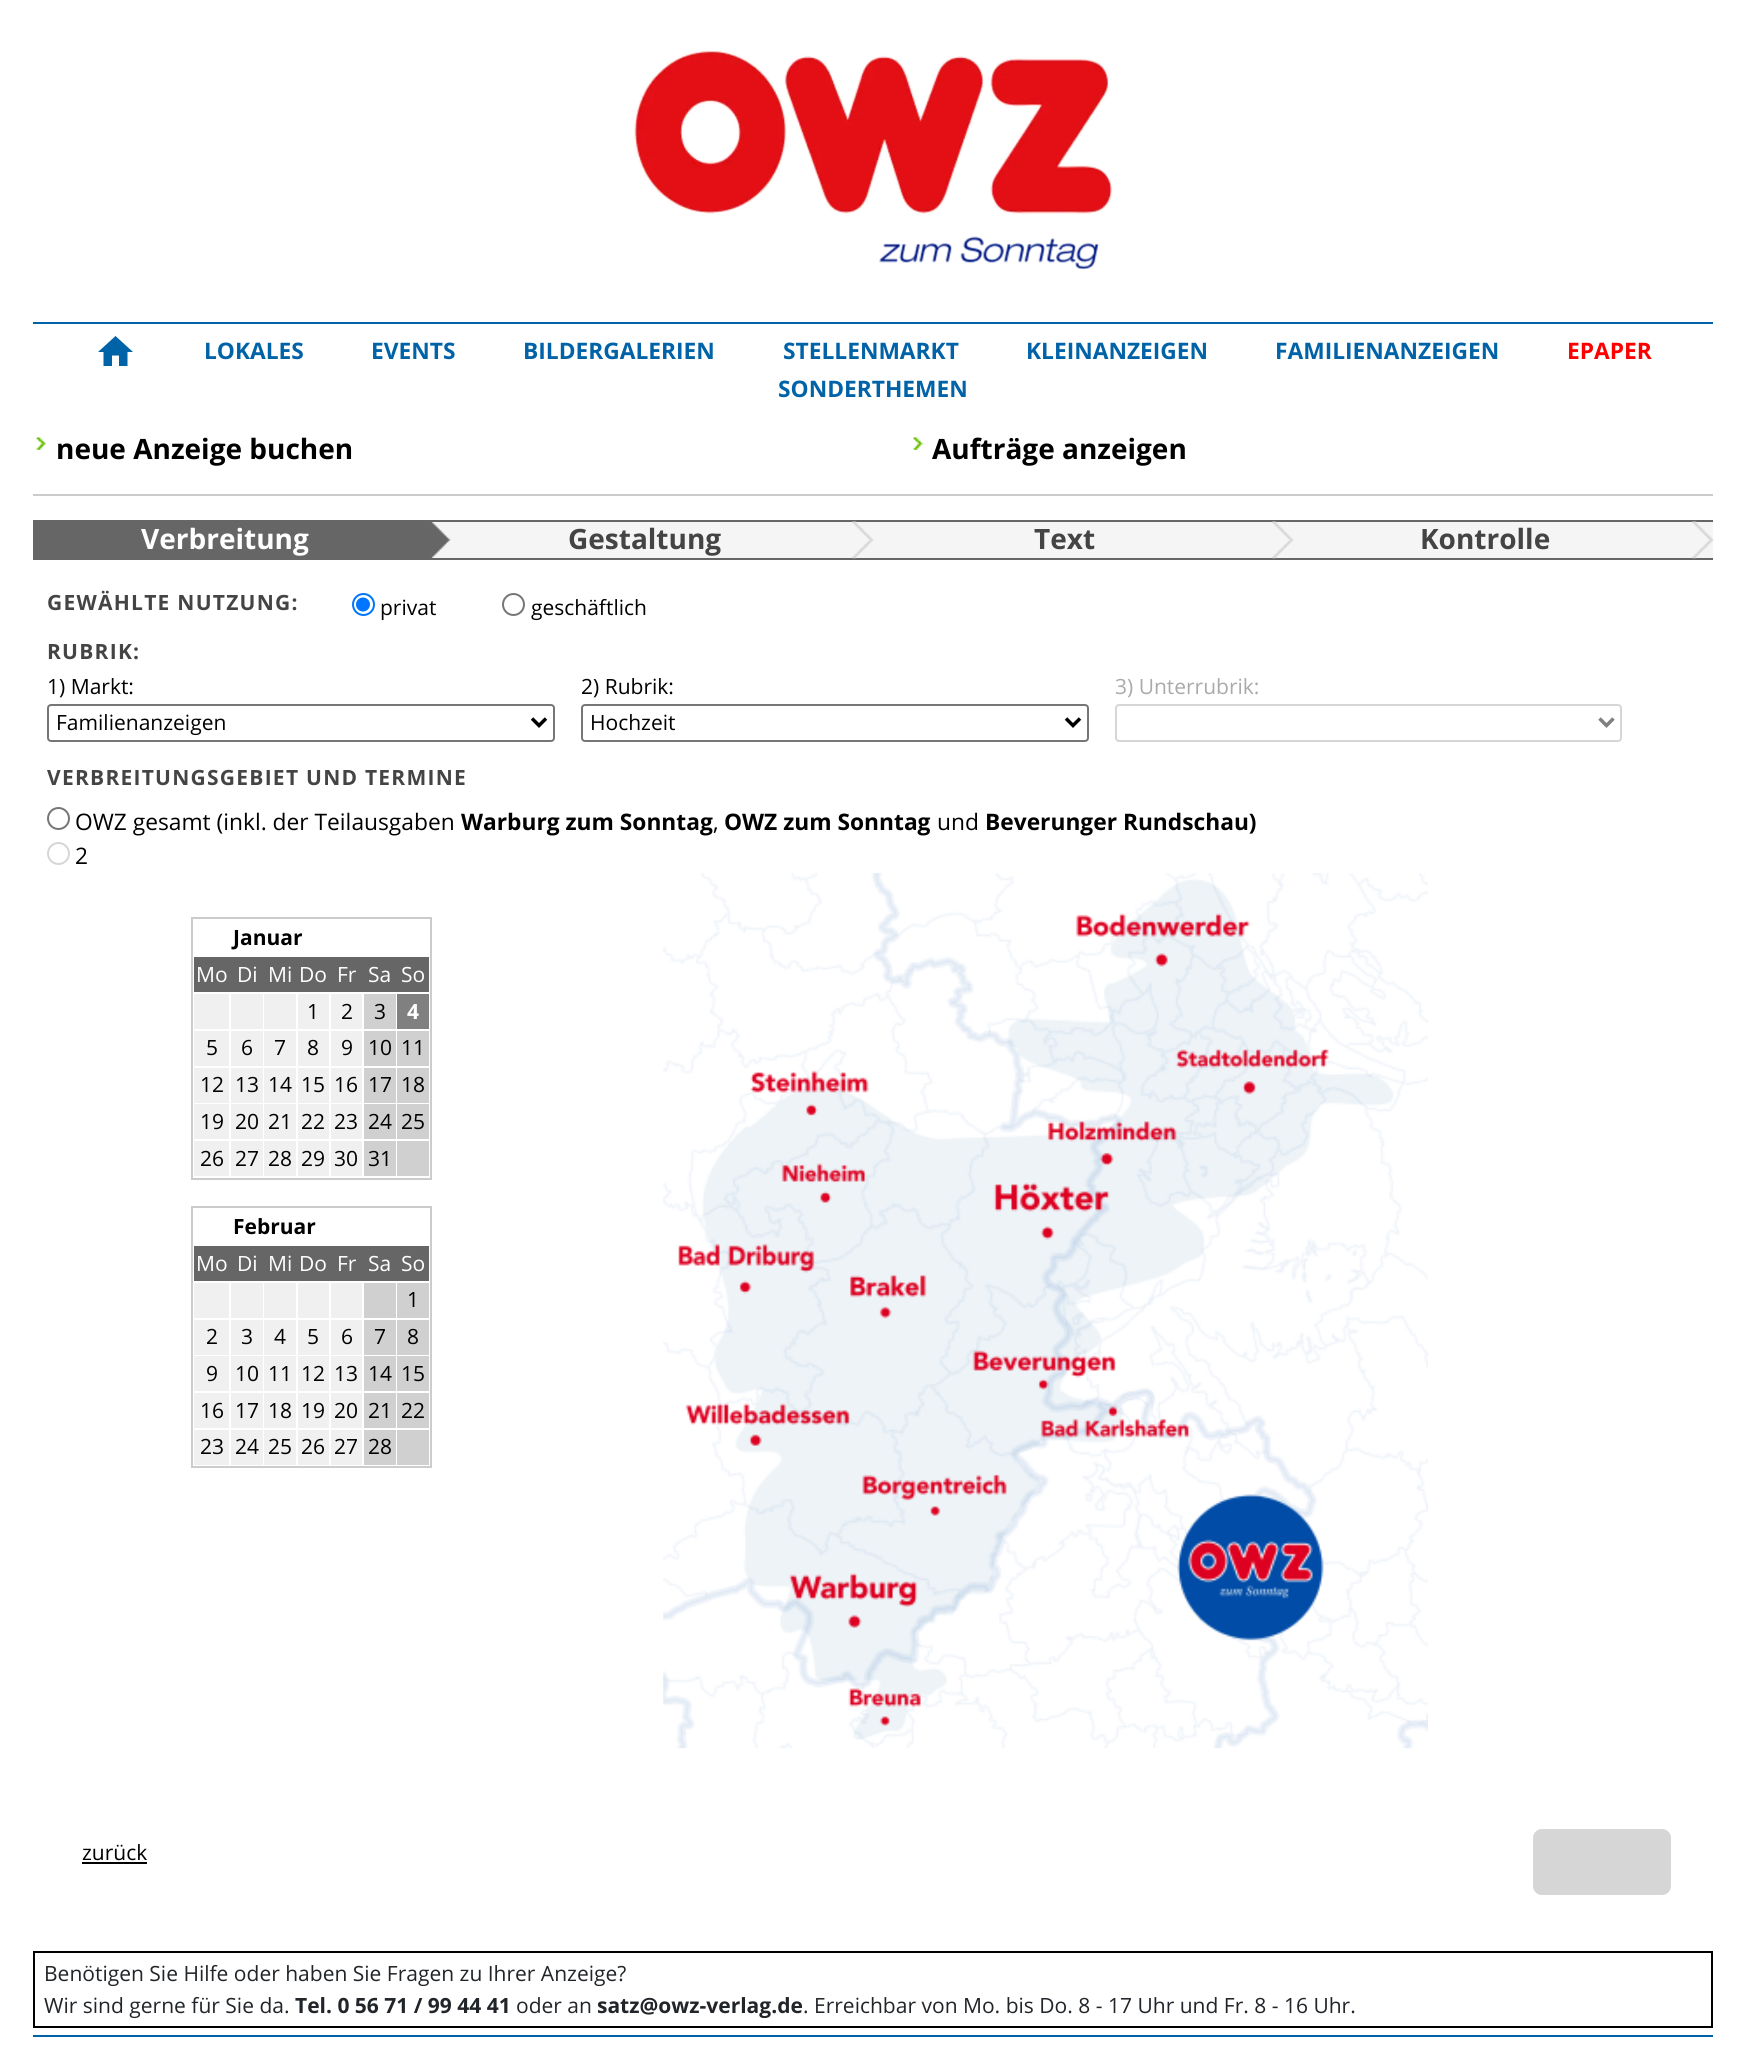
import math
import cairocffi as cairo

surface = cairo.ImageSurface(cairo.FORMAT_RGB24, 1745, 2061)
ctx = cairo.Context(surface)
options = cairo.FontOptions()
options.set_hint_metrics(cairo.HINT_METRICS_OFF)
options.set_hint_style(cairo.HINT_STYLE_NONE)
ctx.set_font_options(options)
ctx.set_miter_limit(4)


def rgb(r, g, b):
    ctx.set_source_rgb(r / 255, g / 255, b / 255)


def face(family, size, italic, bold):
    ctx.select_font_face(family, cairo.FONT_SLANT_ITALIC if italic else cairo.FONT_SLANT_NORMAL, cairo.FONT_WEIGHT_BOLD if bold else cairo.FONT_WEIGHT_NORMAL)
    ctx.set_font_size(size)


def label(x, y, s):
    ctx.move_to(x, y)
    ctx.show_text(s)


def tracked(x, y, s, letter, word):
    ctx.move_to(x, y)
    for ch in s:
        ctx.show_text(ch)
        ctx.rel_move_to(letter + word * (ch == ' '), 0)


def rect(x, y, w, h):
    ctx.rectangle(x, y, w, h)
    ctx.fill()


def rrect(x, y, w, h, r):
    ctx.new_sub_path()
    for i, (u, v) in enumerate([(x + w - r, y + h - r), (x + r, y + h - r), (x + r, y + r), (x + w - r, y + r)]):
        ctx.arc(u, v, r, i * math.pi / 2, (i + 1) * math.pi / 2)
    ctx.close_path()


def image(path, x, y, w, h):
    ctx.save()
    ctx.set_source_surface(cairo.ImageSurface.create_from_png(path), x, y)
    ctx.rectangle(x, y, w, h)
    ctx.fill()
    ctx.restore()


rgb(255, 255, 255)
ctx.paint()
image('image0.png', 634, 50, 479, 220)
rgb(0, 98, 167)
rect(33, 322, 1680, 2)
ctx.new_path()
ctx.move_to(112, 366)
ctx.line_to(103.5, 366)
ctx.line_to(103.5, 352)
ctx.line_to(98, 352)
ctx.line_to(115.5, 336)
ctx.line_to(133, 352)
ctx.line_to(127.5, 352)
ctx.line_to(127.5, 366)
ctx.line_to(119, 366)
ctx.line_to(119, 355.5)
ctx.line_to(112, 355.5)
ctx.close_path()
ctx.fill()
face('Open Sans', 22.75, 0, 1)
label(204, 359, 'LOKALES')
label(371, 359, 'EVENTS')
label(523, 359, 'BILDERGALERIEN')
label(783, 359, 'STELLENMARKT')
label(1026, 359, 'KLEINANZEIGEN')
label(1275, 359, 'FAMILIENANZEIGEN')
rgb(255, 0, 0)
label(1567, 359, 'EPAPER')
rgb(0, 98, 167)
label(778, 397, 'SONDERTHEMEN')
rgb(204, 204, 204)
rect(33, 494, 1680, 2)
image('image1.png', 36, 437, 10, 13)
face('Open Sans', 28, 0, 1)
rgb(0, 0, 0)
label(56, 459, 'neue Anzeige buchen')
image('image2.png', 913, 437, 10, 13)
label(932, 459, 'Aufträge anzeigen')
rgb(102, 102, 102)
rect(33, 520, 1680, 2)
rect(33, 558, 1680, 2)
rect(33, 522, 384, 36)
rgb(255, 255, 255)
label(141, 549, 'Verbreitung')
rgb(245, 245, 245)
rect(431, 522, 406, 36)
image('image3.png', 417, 522, 34, 36)
rgb(68, 68, 68)
label(568, 549, 'Gestaltung')
rgb(245, 245, 245)
rect(837, 522, 420, 36)
image('image4.png', 852, 521, 22, 38)
rgb(68, 68, 68)
label(1034, 549, 'Text')
rgb(245, 245, 245)
rect(1257, 522, 456, 36)
image('image4.png', 1272, 521, 22, 38)
rgb(68, 68, 68)
label(1420, 549, 'Kontrolle')
image('image5.png', 1692, 521, 22, 38)
face('Open Sans', 21, 0, 1)
tracked(47, 610, 'GEWÄHLTE NUTZUNG:', 1.25, 0)
ctx.new_path()
ctx.arc(363.5, 604.5, 10.5, 0, 2 * math.pi)
rgb(0, 117, 255)
ctx.stroke()
ctx.arc(363, 604.5, 7, 0, 2 * math.pi)
ctx.fill()
face('Open Sans', 21, 0, 0)
rgb(0, 0, 0)
label(380, 615, 'privat')
ctx.new_path()
ctx.arc(513.5, 604.5, 10.5, 0, 2 * math.pi)
rgb(118, 118, 118)
ctx.stroke()
rgb(0, 0, 0)
label(531, 615, 'geschäftlich')
face('Open Sans', 21, 0, 1)
rgb(68, 68, 68)
tracked(47, 659, 'RUBRIK:', 1.25, 0)
face('Open Sans', 21, 0, 0)
rgb(0, 0, 0)
label(47, 694, '1) Markt:')
rrect(48, 705, 506, 36, 3)
rgb(118, 118, 118)
ctx.stroke()
ctx.new_path()
ctx.move_to(532, 718.5)
ctx.line_to(539, 725.5)
ctx.line_to(546, 718.5)
rgb(0, 0, 0)
ctx.set_line_width(3.5)
ctx.stroke()
label(56, 730, 'Familienanzeigen')
label(581, 694, '2) Rubrik:')
rrect(582, 705, 506, 36, 3)
rgb(118, 118, 118)
ctx.set_line_width(2)
ctx.stroke()
ctx.new_path()
ctx.move_to(1066, 718.5)
ctx.line_to(1073, 725.5)
ctx.line_to(1080, 718.5)
rgb(0, 0, 0)
ctx.set_line_width(3.5)
ctx.stroke()
label(590, 730, 'Hochzeit')
rgb(170, 170, 170)
label(1115, 694, '3) Unterrubrik:')
rrect(1116, 705, 505, 36, 3)
rgb(214, 214, 214)
ctx.set_line_width(2)
ctx.stroke()
ctx.new_path()
ctx.move_to(1599.5, 718.5)
ctx.line_to(1606.5, 725.5)
ctx.line_to(1613.5, 718.5)
rgb(128, 128, 128)
ctx.set_line_width(3.5)
ctx.stroke()
face('Open Sans', 21, 0, 1)
rgb(68, 68, 68)
tracked(47, 785, 'VERBREITUNGSGEBIET UND TERMINE', 1.25, 0)
ctx.new_path()
ctx.arc(58.5, 818.5, 10.5, 0, 2 * math.pi)
rgb(118, 118, 118)
ctx.set_line_width(2)
ctx.stroke()
face('Open Sans', 22.75, 0, 0)
rgb(0, 0, 0)
label(75, 830, 'OWZ gesamt (inkl. der Teilausgaben')
face('Open Sans', 22.75, 0, 1)
label(461, 830, 'Warburg zum Sonntag')
face('Open Sans', 22.75, 0, 0)
label(713, 830, ',')
face('Open Sans', 22.75, 0, 1)
label(724, 830, 'OWZ zum Sonntag')
face('Open Sans', 22.75, 0, 0)
label(937, 830, 'und')
face('Open Sans', 22.75, 0, 1)
label(985, 830, 'Beverunger Rundschau)')
ctx.new_path()
ctx.arc(58.5, 853.5, 10.5, 0, 2 * math.pi)
rgb(214, 214, 214)
ctx.stroke()
face('Open Sans', 22.75, 0, 0)
rgb(0, 0, 0)
label(75, 864, '2')
ctx.rectangle(192, 918, 239, 261)
rgb(204, 204, 204)
ctx.stroke()
face('Open Sans', 21, 0, 1)
rgb(0, 0, 0)
label(233, 945, 'Januar')
rgb(102, 102, 102)
rect(194, 957, 235, 35)
face('Open Sans', 21, 0, 0)
rgb(255, 255, 255)
label(196, 982, 'Mo')
label(237, 982, 'Di')
label(268, 982, 'Mi')
label(299, 982, 'Do')
label(337, 982, 'Fr')
label(368, 982, 'Sa')
label(401, 982, 'So')
rgb(240, 240, 240)
rect(194, 994, 35, 35)
rect(231, 994, 32, 35)
rect(264, 994, 32, 35)
rect(298, 994, 31, 35)
rgb(0, 0, 0)
label(307, 1019, '1')
rgb(240, 240, 240)
rect(331, 994, 31, 35)
rgb(0, 0, 0)
label(341, 1019, '2')
rgb(208, 208, 208)
rect(364, 994, 32, 35)
rgb(0, 0, 0)
label(374, 1019, '3')
rgb(128, 128, 128)
rect(397, 994, 32, 35)
face('Open Sans', 21, 0, 1)
rgb(255, 255, 255)
label(407, 1019, '4')
rgb(240, 240, 240)
rect(194, 1031, 35, 35)
face('Open Sans', 21, 0, 0)
rgb(0, 0, 0)
label(206, 1055, '5')
rgb(240, 240, 240)
rect(231, 1031, 32, 35)
rgb(0, 0, 0)
label(241, 1055, '6')
rgb(240, 240, 240)
rect(264, 1031, 32, 35)
rgb(0, 0, 0)
label(274, 1055, '7')
rgb(240, 240, 240)
rect(298, 1031, 31, 35)
rgb(0, 0, 0)
label(307, 1055, '8')
rgb(240, 240, 240)
rect(331, 1031, 31, 35)
rgb(0, 0, 0)
label(341, 1055, '9')
rgb(208, 208, 208)
rect(364, 1031, 32, 35)
rgb(0, 0, 0)
label(368, 1055, '10')
rgb(208, 208, 208)
rect(397, 1031, 32, 35)
rgb(0, 0, 0)
label(401, 1055, '11')
rgb(240, 240, 240)
rect(194, 1068, 35, 35)
rgb(0, 0, 0)
label(200, 1092, '12')
rgb(240, 240, 240)
rect(231, 1068, 32, 35)
rgb(0, 0, 0)
label(235, 1092, '13')
rgb(240, 240, 240)
rect(264, 1068, 32, 35)
rgb(0, 0, 0)
label(268, 1092, '14')
rgb(240, 240, 240)
rect(298, 1068, 31, 35)
rgb(0, 0, 0)
label(301, 1092, '15')
rgb(240, 240, 240)
rect(331, 1068, 31, 35)
rgb(0, 0, 0)
label(334, 1092, '16')
rgb(208, 208, 208)
rect(364, 1068, 32, 35)
rgb(0, 0, 0)
label(368, 1092, '17')
rgb(208, 208, 208)
rect(397, 1068, 32, 35)
rgb(0, 0, 0)
label(401, 1092, '18')
rgb(240, 240, 240)
rect(194, 1104, 35, 35)
rgb(0, 0, 0)
label(200, 1129, '19')
rgb(240, 240, 240)
rect(231, 1104, 32, 35)
rgb(0, 0, 0)
label(235, 1129, '20')
rgb(240, 240, 240)
rect(264, 1104, 32, 35)
rgb(0, 0, 0)
label(268, 1129, '21')
rgb(240, 240, 240)
rect(298, 1104, 31, 35)
rgb(0, 0, 0)
label(301, 1129, '22')
rgb(240, 240, 240)
rect(331, 1104, 31, 35)
rgb(0, 0, 0)
label(334, 1129, '23')
rgb(208, 208, 208)
rect(364, 1104, 32, 35)
rgb(0, 0, 0)
label(368, 1129, '24')
rgb(208, 208, 208)
rect(397, 1104, 32, 35)
rgb(0, 0, 0)
label(401, 1129, '25')
rgb(240, 240, 240)
rect(194, 1141, 35, 35)
rgb(0, 0, 0)
label(200, 1166, '26')
rgb(240, 240, 240)
rect(231, 1141, 32, 35)
rgb(0, 0, 0)
label(235, 1166, '27')
rgb(240, 240, 240)
rect(264, 1141, 32, 35)
rgb(0, 0, 0)
label(268, 1166, '28')
rgb(240, 240, 240)
rect(298, 1141, 31, 35)
rgb(0, 0, 0)
label(301, 1166, '29')
rgb(240, 240, 240)
rect(331, 1141, 31, 35)
rgb(0, 0, 0)
label(334, 1166, '30')
rgb(208, 208, 208)
rect(364, 1141, 32, 35)
rgb(0, 0, 0)
label(368, 1166, '31')
rgb(208, 208, 208)
rect(397, 1141, 32, 35)
ctx.rectangle(192, 1207, 239, 260)
rgb(204, 204, 204)
ctx.stroke()
face('Open Sans', 21, 0, 1)
rgb(0, 0, 0)
label(233, 1234, 'Februar')
rgb(102, 102, 102)
rect(194, 1246, 235, 35)
face('Open Sans', 21, 0, 0)
rgb(255, 255, 255)
label(196, 1271, 'Mo')
label(237, 1271, 'Di')
label(268, 1271, 'Mi')
label(299, 1271, 'Do')
label(337, 1271, 'Fr')
label(368, 1271, 'Sa')
label(401, 1271, 'So')
rgb(240, 240, 240)
rect(194, 1283, 35, 35)
rect(231, 1283, 32, 35)
rect(264, 1283, 32, 35)
rect(298, 1283, 31, 35)
rect(331, 1283, 31, 35)
rgb(208, 208, 208)
rect(364, 1283, 32, 35)
rect(397, 1283, 32, 35)
rgb(0, 0, 0)
label(407, 1307, '1')
rgb(240, 240, 240)
rect(194, 1320, 35, 35)
rgb(0, 0, 0)
label(206, 1344, '2')
rgb(240, 240, 240)
rect(231, 1320, 32, 35)
rgb(0, 0, 0)
label(241, 1344, '3')
rgb(240, 240, 240)
rect(264, 1320, 32, 35)
rgb(0, 0, 0)
label(274, 1344, '4')
rgb(240, 240, 240)
rect(298, 1320, 31, 35)
rgb(0, 0, 0)
label(307, 1344, '5')
rgb(240, 240, 240)
rect(331, 1320, 31, 35)
rgb(0, 0, 0)
label(341, 1344, '6')
rgb(208, 208, 208)
rect(364, 1320, 32, 35)
rgb(0, 0, 0)
label(374, 1344, '7')
rgb(208, 208, 208)
rect(397, 1320, 32, 35)
rgb(0, 0, 0)
label(407, 1344, '8')
rgb(240, 240, 240)
rect(194, 1356, 35, 35)
rgb(0, 0, 0)
label(206, 1381, '9')
rgb(240, 240, 240)
rect(231, 1356, 32, 35)
rgb(0, 0, 0)
label(235, 1381, '10')
rgb(240, 240, 240)
rect(264, 1356, 32, 35)
rgb(0, 0, 0)
label(268, 1381, '11')
rgb(240, 240, 240)
rect(298, 1356, 31, 35)
rgb(0, 0, 0)
label(301, 1381, '12')
rgb(240, 240, 240)
rect(331, 1356, 31, 35)
rgb(0, 0, 0)
label(334, 1381, '13')
rgb(208, 208, 208)
rect(364, 1356, 32, 35)
rgb(0, 0, 0)
label(368, 1381, '14')
rgb(208, 208, 208)
rect(397, 1356, 32, 35)
rgb(0, 0, 0)
label(401, 1381, '15')
rgb(240, 240, 240)
rect(194, 1393, 35, 35)
rgb(0, 0, 0)
label(200, 1418, '16')
rgb(240, 240, 240)
rect(231, 1393, 32, 35)
rgb(0, 0, 0)
label(235, 1418, '17')
rgb(240, 240, 240)
rect(264, 1393, 32, 35)
rgb(0, 0, 0)
label(268, 1418, '18')
rgb(240, 240, 240)
rect(298, 1393, 31, 35)
rgb(0, 0, 0)
label(301, 1418, '19')
rgb(240, 240, 240)
rect(331, 1393, 31, 35)
rgb(0, 0, 0)
label(334, 1418, '20')
rgb(208, 208, 208)
rect(364, 1393, 32, 35)
rgb(0, 0, 0)
label(368, 1418, '21')
rgb(208, 208, 208)
rect(397, 1393, 32, 35)
rgb(0, 0, 0)
label(401, 1418, '22')
rgb(240, 240, 240)
rect(194, 1430, 35, 35)
rgb(0, 0, 0)
label(200, 1454, '23')
rgb(240, 240, 240)
rect(231, 1430, 32, 35)
rgb(0, 0, 0)
label(235, 1454, '24')
rgb(240, 240, 240)
rect(264, 1430, 32, 35)
rgb(0, 0, 0)
label(268, 1454, '25')
rgb(240, 240, 240)
rect(298, 1430, 31, 35)
rgb(0, 0, 0)
label(301, 1454, '26')
rgb(240, 240, 240)
rect(331, 1430, 31, 35)
rgb(0, 0, 0)
label(334, 1454, '27')
rgb(208, 208, 208)
rect(364, 1430, 32, 35)
rgb(0, 0, 0)
label(368, 1454, '28')
rgb(208, 208, 208)
rect(397, 1430, 32, 35)
image('image6.png', 663, 873, 765, 876)
rgb(0, 0, 0)
label(82, 1860, 'zurück')
rect(82, 1862, 65, 2)
rgb(214, 214, 214)
rrect(1533, 1829, 138, 66, 9)
ctx.fill()
ctx.rectangle(34, 1952, 1678, 75)
rgb(0, 0, 0)
ctx.stroke()
rgb(33, 37, 41)
label(44, 1981, 'Benötigen Sie Hilfe oder haben Sie Fragen zu Ihrer Anzeige?')
label(44, 2013, 'Wir sind gerne für Sie da.')
face('Open Sans', 21, 0, 1)
label(295, 2013, 'Tel. 0 56 71 / 99 44 41')
face('Open Sans', 21, 0, 0)
label(516, 2013, 'oder an')
face('Open Sans', 21, 0, 1)
label(597, 2013, 'satz@owz-verlag.de')
face('Open Sans', 21, 0, 0)
label(803, 2013, '. Erreichbar von Mo. bis Do. 8 - 17 Uhr und Fr. 8 - 16 Uhr.')
rgb(0, 98, 167)
rect(33, 2035, 1680, 2)
surface.write_to_png('render.png')
